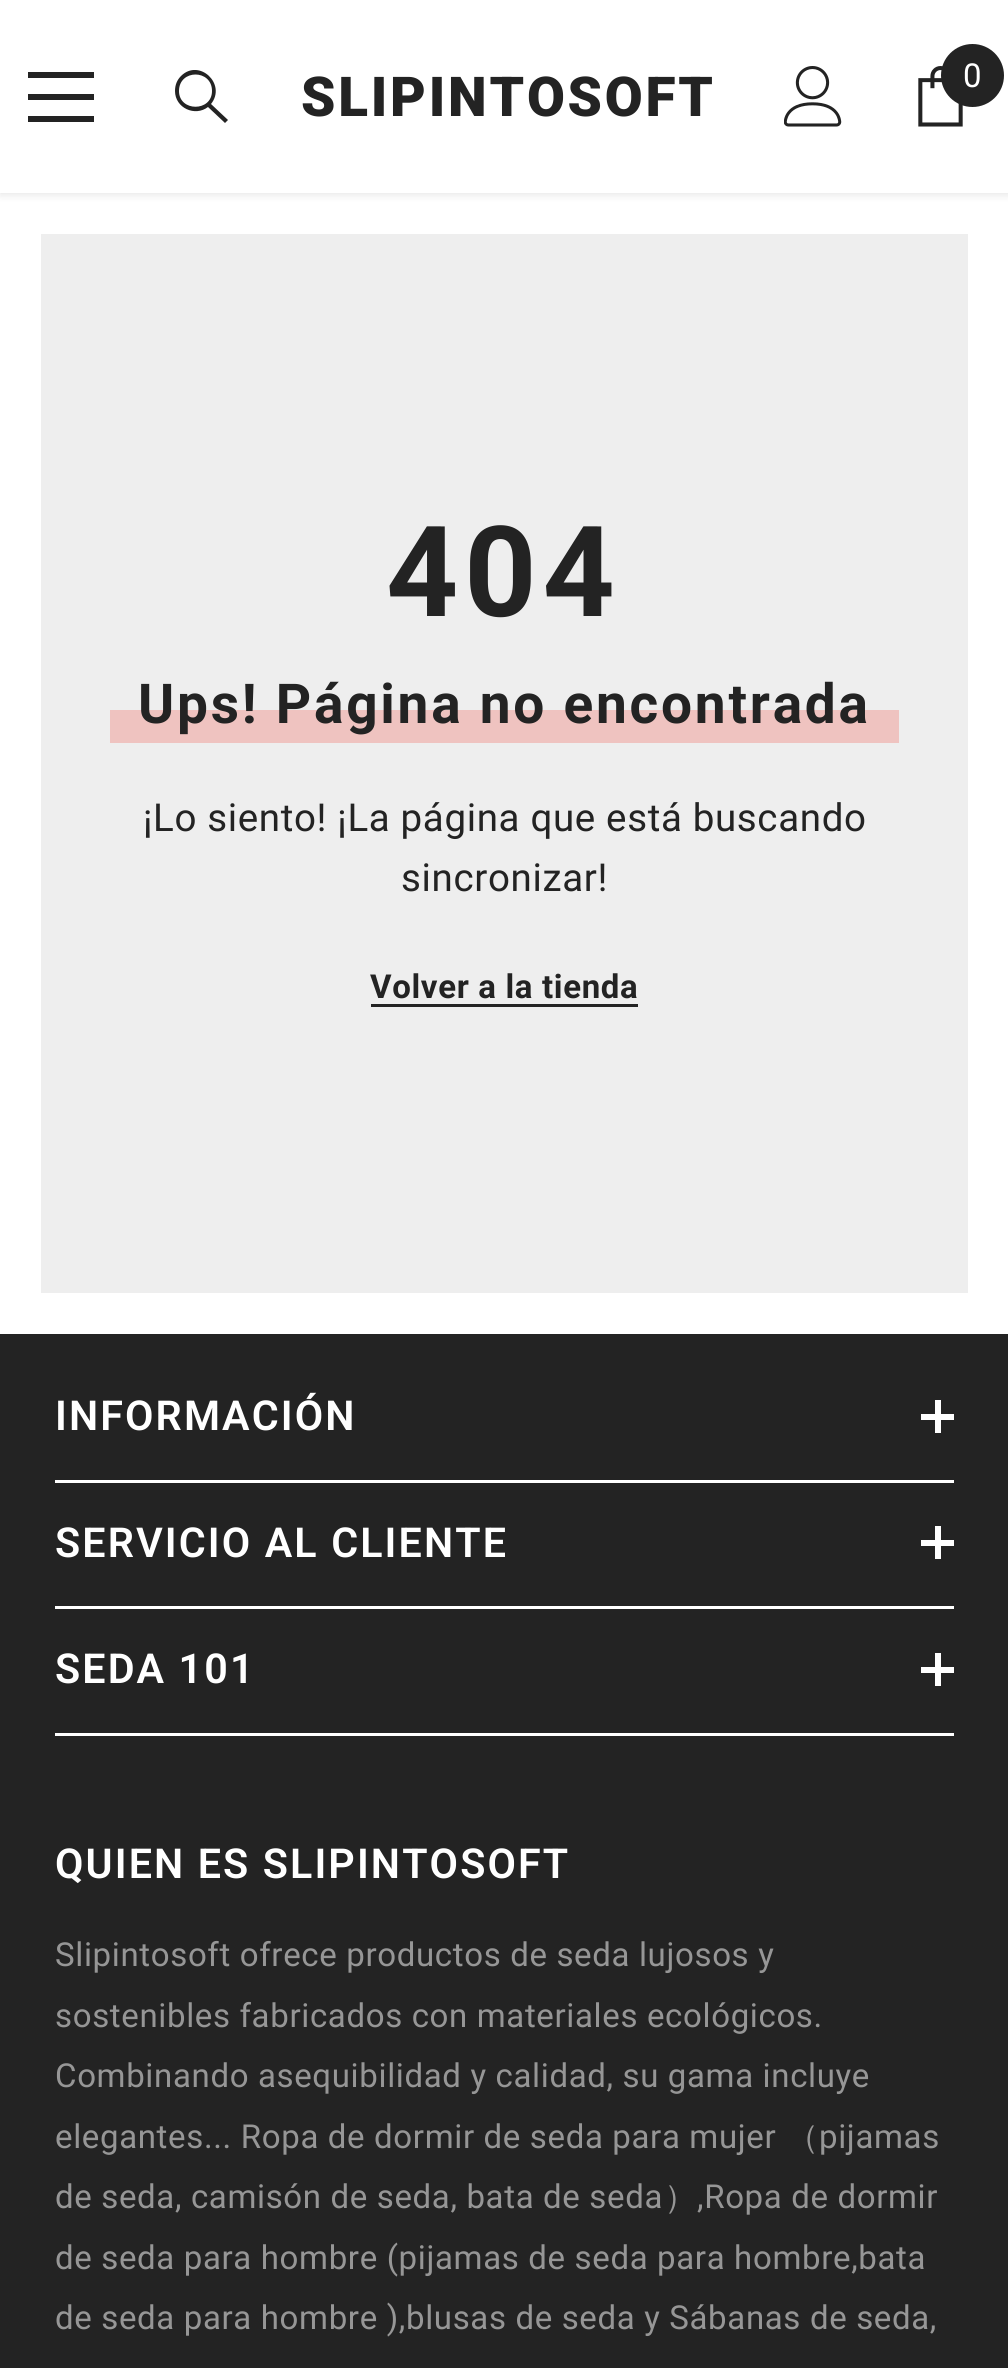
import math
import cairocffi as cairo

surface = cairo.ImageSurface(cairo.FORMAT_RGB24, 1008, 2368)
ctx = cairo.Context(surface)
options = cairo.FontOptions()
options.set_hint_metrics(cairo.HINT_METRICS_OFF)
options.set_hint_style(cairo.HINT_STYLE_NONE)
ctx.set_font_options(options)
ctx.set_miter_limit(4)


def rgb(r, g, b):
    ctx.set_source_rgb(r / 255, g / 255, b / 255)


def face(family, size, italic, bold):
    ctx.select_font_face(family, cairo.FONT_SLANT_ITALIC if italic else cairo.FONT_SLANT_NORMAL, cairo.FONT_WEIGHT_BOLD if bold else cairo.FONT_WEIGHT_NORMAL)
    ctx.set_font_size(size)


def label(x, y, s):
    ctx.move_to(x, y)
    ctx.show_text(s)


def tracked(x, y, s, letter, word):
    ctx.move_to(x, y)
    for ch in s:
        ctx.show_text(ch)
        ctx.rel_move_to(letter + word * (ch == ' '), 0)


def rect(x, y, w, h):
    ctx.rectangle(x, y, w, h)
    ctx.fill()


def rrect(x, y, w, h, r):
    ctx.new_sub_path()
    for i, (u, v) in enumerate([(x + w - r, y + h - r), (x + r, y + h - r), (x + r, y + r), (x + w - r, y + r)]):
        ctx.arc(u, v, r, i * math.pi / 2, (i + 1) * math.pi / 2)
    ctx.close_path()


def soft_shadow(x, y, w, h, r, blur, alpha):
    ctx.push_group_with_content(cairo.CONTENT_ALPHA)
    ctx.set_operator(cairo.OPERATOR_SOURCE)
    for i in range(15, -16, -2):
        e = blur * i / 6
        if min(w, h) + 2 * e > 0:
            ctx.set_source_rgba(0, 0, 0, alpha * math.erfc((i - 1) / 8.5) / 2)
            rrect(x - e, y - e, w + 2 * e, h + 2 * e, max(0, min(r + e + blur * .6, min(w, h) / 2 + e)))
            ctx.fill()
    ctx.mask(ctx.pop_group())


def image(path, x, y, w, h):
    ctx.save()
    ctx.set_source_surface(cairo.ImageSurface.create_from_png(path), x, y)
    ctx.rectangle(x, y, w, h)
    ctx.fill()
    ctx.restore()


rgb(255, 255, 255)
ctx.paint()
rgb(0, 0, 0)
soft_shadow(0, 3, 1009, 192, 0, 4, 0.1)
rgb(255, 255, 255)
rect(0, 0, 1008, 193)
rgb(35, 35, 35)
rect(28, 94, 66, 6)
rect(28, 72, 66, 6)
rect(28, 116, 66, 6)
ctx.new_path()
ctx.move_to(175, 91)
ctx.curve_to(175, 108, 195, 117, 208, 107)
ctx.line_to(225, 123)
ctx.line_to(228, 120)
ctx.line_to(211, 104)
ctx.curve_to(227, 84, 199, 58, 181, 76)
ctx.curve_to(177, 80, 175, 85, 175, 91)
ctx.close_path()
ctx.move_to(179, 91)
ctx.curve_to(179, 69, 212, 69, 212, 91)
ctx.curve_to(212, 112, 179, 112, 179, 91)
ctx.close_path()
ctx.fill()
face('Roboto Black', 55, 0, 0)
tracked(301, 116, 'SLIPINTOSOFT', 2.75, 0)
image('image0.png', 784, 66, 58, 61)
image('image1.png', 918, 66, 45, 61)
ctx.arc(972.5, 75.5, 31.5, 0, 2 * math.pi)
ctx.fill()
face('Roboto', 33, 0, 0)
rgb(255, 255, 255)
label(963, 87, '0')
rgb(238, 238, 238)
rect(41, 234, 927, 1059)
face('Roboto', 126, 0, 1)
rgb(35, 35, 35)
tracked(386, 616, '404', 6, 0)
rgb(239, 195, 192)
rect(110, 710, 789, 33)
face('Roboto', 55, 0, 1)
rgb(35, 35, 35)
tracked(138, 723, 'Ups! Página no encontrada', 2.75, 0)
face('Roboto', 38.5, 0, 0)
tracked(143, 831, '¡Lo siento! ¡La página que está buscando', 0.65, 0)
tracked(401, 891, 'sincronizar!', 0.65, 0)
face('Roboto', 33, 0, 1)
tracked(370, 998, 'Volver a la tienda', 0.65, 0)
rect(371, 1004, 267, 3)
rect(0, 1334, 1008, 1034)
rgb(255, 255, 255)
rect(55, 1480, 899, 3)
face('Roboto SemiBold', 41.25, 0, 0)
tracked(55, 1430, 'INFORMACIÓN', 2.1, 0)
rect(935, 1400, 6, 33)
rect(921, 1414, 33, 6)
rect(55, 1606, 899, 3)
tracked(55, 1557, 'SERVICIO AL CLIENTE', 2.1, 0)
rect(935, 1526, 6, 33)
rect(921, 1540, 33, 6)
rect(55, 1733, 899, 3)
tracked(55, 1683, 'SEDA 101', 2.1, 0)
rect(935, 1653, 6, 33)
rect(921, 1667, 33, 6)
tracked(55, 1878, 'QUIEN ES SLIPINTOSOFT', 2.1, 0)
face('Roboto', 33, 0, 0)
rgb(150, 150, 150)
tracked(55, 1966, 'Slipintosoft ofrece productos de seda lujosos y', 0.65, 0)
tracked(55, 2027, 'sostenibles fabricados con materiales ecológicos.', 0.65, 0)
tracked(55, 2087, 'Combinando asequibilidad y calidad, su gama incluye', 0.65, 0)
tracked(55, 2148, 'elegantes... Ropa de dormir de seda para mujer', 0.65, 0)
face('WenQuanYi Zen Hei Medium', 33, 0, 0)
tracked(786, 2148, '（', 0.65, 0)
face('Roboto', 33, 0, 0)
tracked(819, 2148, 'pijamas', 0.65, 0)
tracked(55, 2208, 'de seda, camisón de seda, bata de seda', 0.65, 0)
face('WenQuanYi Zen Hei Medium', 33, 0, 0)
tracked(664, 2208, '）', 0.65, 0)
face('Roboto', 33, 0, 0)
tracked(697, 2208, ',Ropa de dormir', 0.65, 0)
tracked(55, 2269, 'de seda para hombre (pijamas de seda para hombre,bata', 0.65, 0)
tracked(55, 2329, 'de seda para hombre ),blusas de seda y Sábanas de seda,', 0.65, 0)
surface.write_to_png('render.png')
